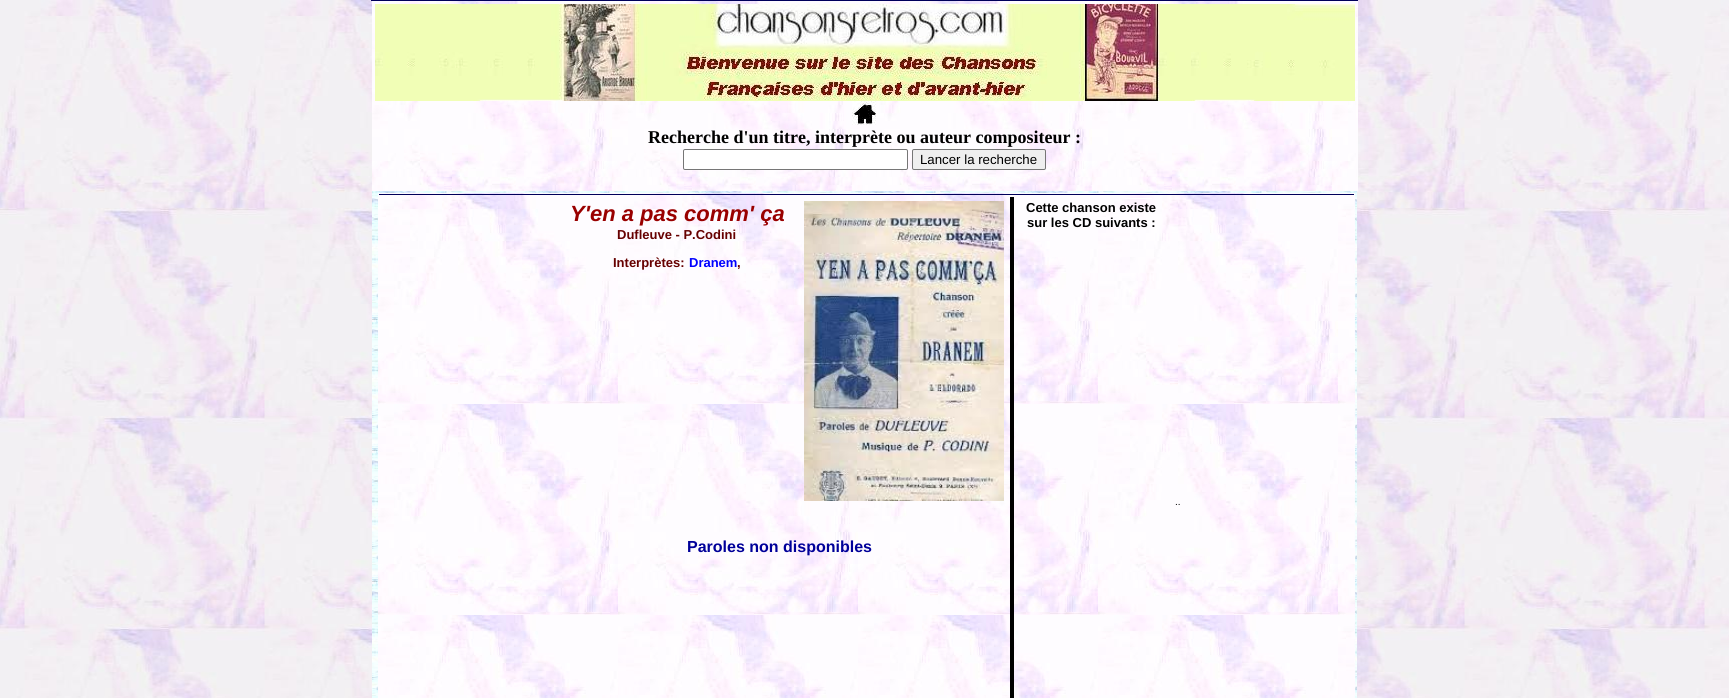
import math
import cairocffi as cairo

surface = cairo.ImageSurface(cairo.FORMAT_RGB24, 1729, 698)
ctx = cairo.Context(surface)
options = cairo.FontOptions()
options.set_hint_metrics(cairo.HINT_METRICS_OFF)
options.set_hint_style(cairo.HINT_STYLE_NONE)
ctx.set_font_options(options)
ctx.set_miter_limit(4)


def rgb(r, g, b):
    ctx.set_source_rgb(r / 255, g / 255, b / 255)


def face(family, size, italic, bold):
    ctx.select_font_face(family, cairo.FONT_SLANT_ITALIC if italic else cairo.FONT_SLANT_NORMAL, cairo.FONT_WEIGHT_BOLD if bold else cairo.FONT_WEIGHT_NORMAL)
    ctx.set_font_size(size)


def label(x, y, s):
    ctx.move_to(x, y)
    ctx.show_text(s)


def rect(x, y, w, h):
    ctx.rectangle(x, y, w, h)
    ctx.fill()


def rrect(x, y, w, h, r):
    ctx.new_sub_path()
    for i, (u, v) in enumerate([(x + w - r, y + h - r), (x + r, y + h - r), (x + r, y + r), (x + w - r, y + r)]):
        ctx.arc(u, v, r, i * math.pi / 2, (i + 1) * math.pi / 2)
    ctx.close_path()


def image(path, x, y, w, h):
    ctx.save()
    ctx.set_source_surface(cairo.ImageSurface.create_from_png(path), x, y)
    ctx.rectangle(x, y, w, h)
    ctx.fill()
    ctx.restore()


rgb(255, 255, 255)
ctx.paint()
image('image0.png', 0, 0, 1729, 698)
rgb(0, 0, 90)
rect(371, 0, 987, 1)
image('image1.png', 372, 1, 986, 190)
image('image2.png', 375, 4, 980, 97)
image('image3.png', 852, 101, 24, 24)
face('Liberation Serif', 18, 0, 1)
rgb(0, 0, 0)
label(648, 143, 'Recherche d\'un titre, interprète ou auteur compositeur :')
rgb(255, 255, 255)
rrect(683.5, 149.5, 224, 20, 1.5)
ctx.fill_preserve()
rgb(118, 118, 118)
ctx.set_line_width(1)
ctx.stroke()
rgb(239, 239, 239)
rrect(912.5, 149.5, 133, 20, 1.5)
ctx.fill_preserve()
rgb(118, 118, 118)
ctx.stroke()
face('Liberation Sans', 13.25, 0, 0)
rgb(0, 0, 0)
label(920, 164, 'Lancer la recherche')
image('image4.png', 372, 191, 985, 507)
image('image5.png', 378, 193, 977, 505)
rgb(0, 0, 90)
rect(379, 194, 975, 1)
face('Liberation Sans', 22, 1, 1)
rgb(153, 0, 0)
label(570, 221, 'Y\'en a pas comm\' ça')
face('Liberation Sans', 13, 0, 1)
rgb(102, 0, 0)
label(617, 239, 'Dufleuve - P.Codini')
label(613, 267, 'Interprètes:')
rgb(0, 0, 255)
label(689, 267, 'Dranem')
rgb(102, 0, 0)
label(737, 267, ',')
image('image6.png', 804, 201, 200, 300)
face('Liberation Sans', 16, 0, 1)
rgb(0, 0, 153)
label(687, 552, 'Paroles non disponibles')
rgb(0, 0, 0)
rect(1010, 197, 4, 501)
rgb(255, 255, 255)
rect(1125, 198, 27, 1)
face('Liberation Sans', 13, 0, 1)
rgb(0, 0, 0)
label(1026, 212, 'Cette chanson existe')
label(1027, 227, 'sur les CD suivants :')
face('Liberation Sans', 10, 0, 0)
label(1175, 505, '..')
surface.write_to_png('render.png')
